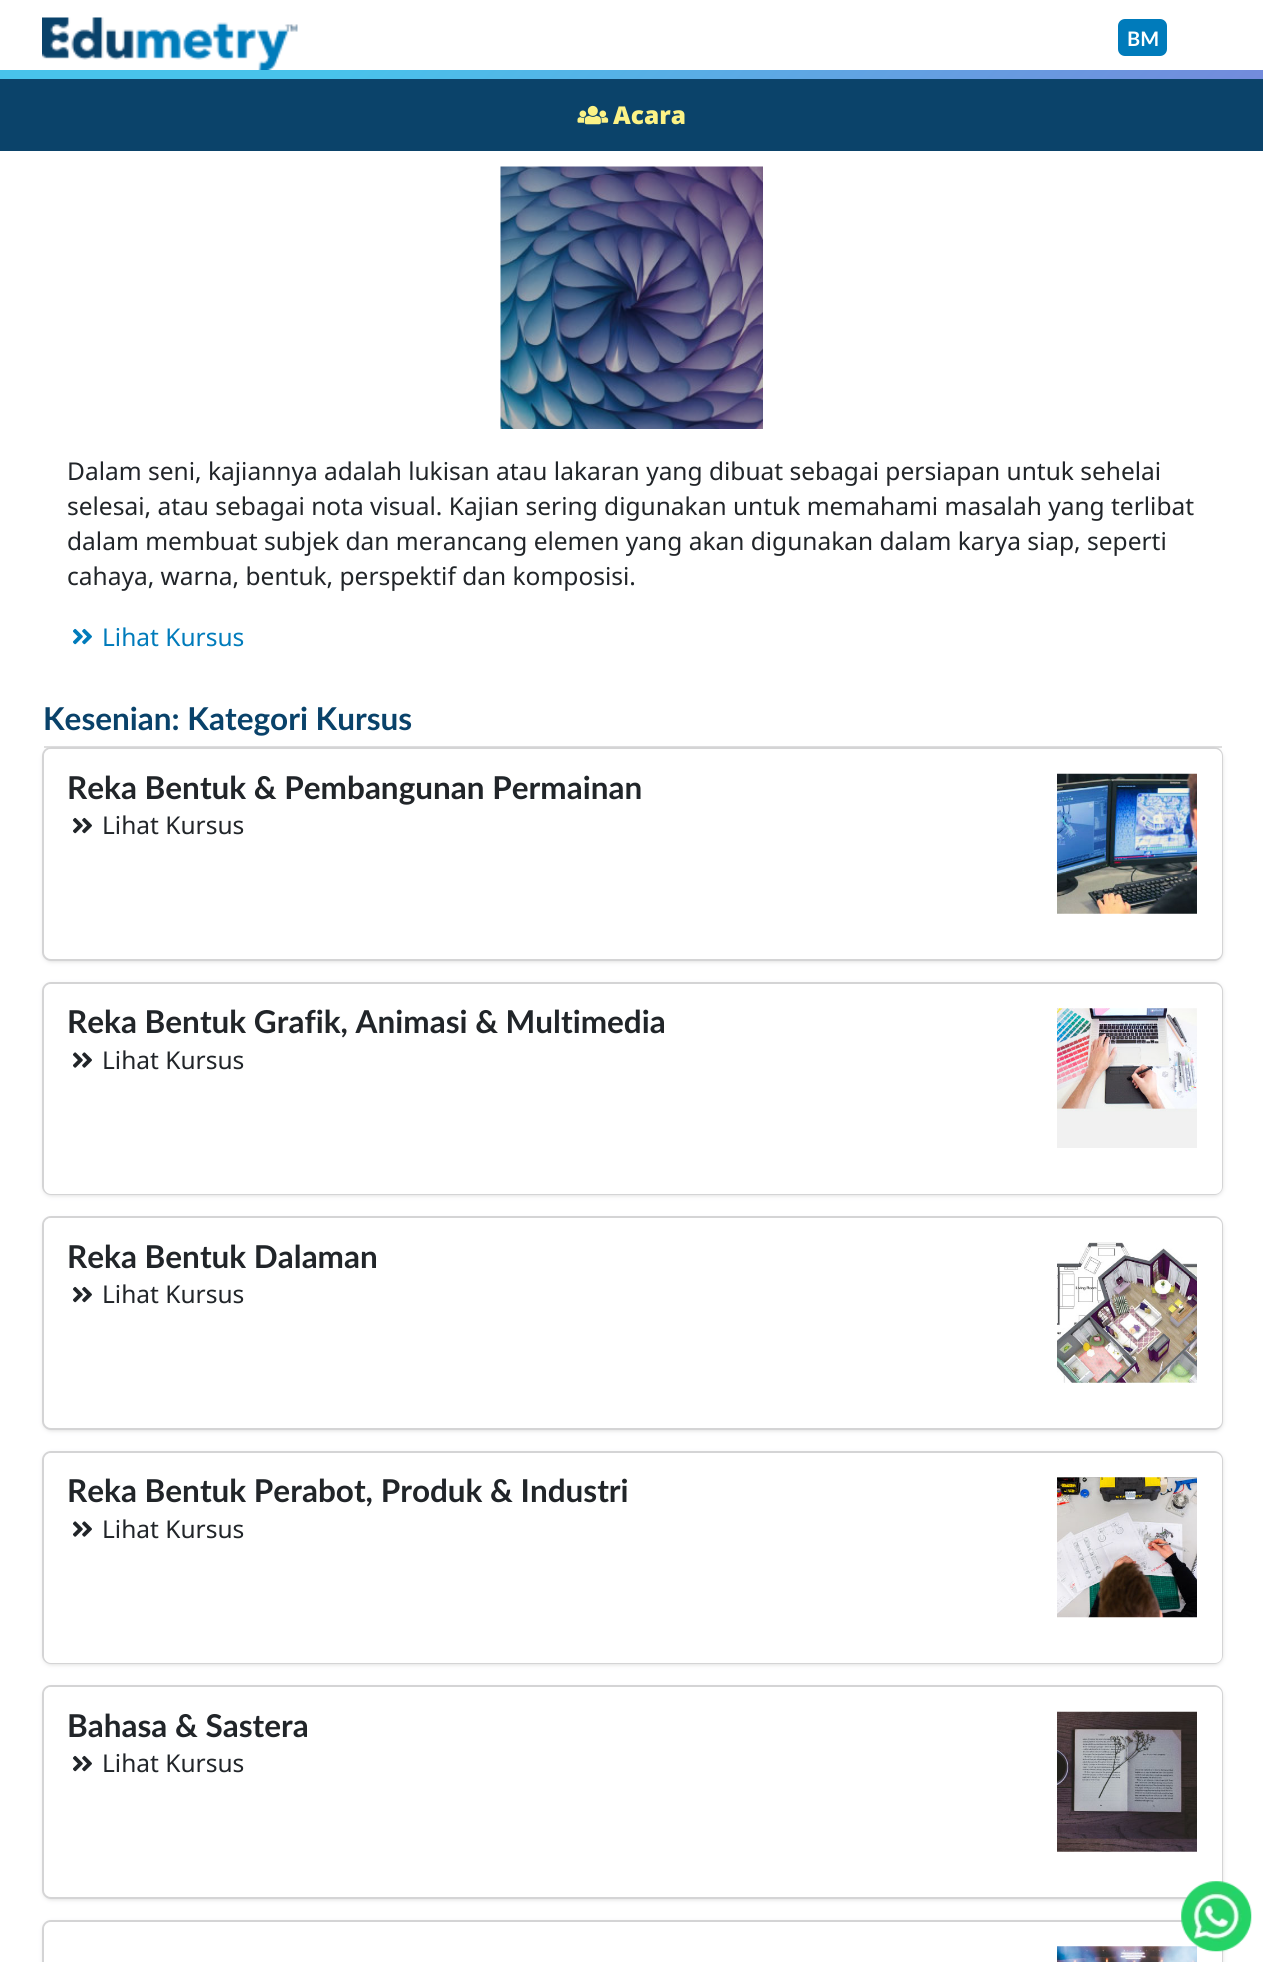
import math
import cairocffi as cairo

surface = cairo.ImageSurface(cairo.FORMAT_RGB24, 1263, 1962)
ctx = cairo.Context(surface)
options = cairo.FontOptions()
options.set_hint_metrics(cairo.HINT_METRICS_OFF)
options.set_hint_style(cairo.HINT_STYLE_NONE)
ctx.set_font_options(options)
ctx.set_miter_limit(4)


def rgb(r, g, b):
    ctx.set_source_rgb(r / 255, g / 255, b / 255)


def face(family, size, italic, bold):
    ctx.select_font_face(family, cairo.FONT_SLANT_ITALIC if italic else cairo.FONT_SLANT_NORMAL, cairo.FONT_WEIGHT_BOLD if bold else cairo.FONT_WEIGHT_NORMAL)
    ctx.set_font_size(size)


def label(x, y, s):
    ctx.move_to(x, y)
    ctx.show_text(s)


def rect(x, y, w, h):
    ctx.rectangle(x, y, w, h)
    ctx.fill()


def rrect(x, y, w, h, r):
    ctx.new_sub_path()
    for i, (u, v) in enumerate([(x + w - r, y + h - r), (x + r, y + h - r), (x + r, y + r), (x + w - r, y + r)]):
        ctx.arc(u, v, r, i * math.pi / 2, (i + 1) * math.pi / 2)
    ctx.close_path()


def soft_shadow(x, y, w, h, r, blur, alpha):
    ctx.push_group_with_content(cairo.CONTENT_ALPHA)
    ctx.set_operator(cairo.OPERATOR_SOURCE)
    for i in range(15, -16, -2):
        e = blur * i / 6
        if min(w, h) + 2 * e > 0:
            ctx.set_source_rgba(0, 0, 0, alpha * math.erfc((i - 1) / 8.5) / 2)
            rrect(x - e, y - e, w + 2 * e, h + 2 * e, max(0, min(r + e + blur * .6, min(w, h) / 2 + e)))
            ctx.fill()
    ctx.mask(ctx.pop_group())


def image(path, x, y, w, h):
    ctx.save()
    ctx.set_source_surface(cairo.ImageSurface.create_from_png(path), x, y)
    ctx.rectangle(x, y, w, h)
    ctx.fill()
    ctx.restore()


rgb(255, 255, 255)
ctx.paint()
image('image0.png', 42, 17, 256, 53)
rgb(0, 123, 187)
rrect(1118, 19, 49, 37, 7)
ctx.fill()
face('Lato', 20, 0, 1)
rgb(255, 255, 255)
label(1127, 46, 'BM')
gradient = cairo.LinearGradient(950, 392, 314, -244)
gradient.add_color_stop_rgba(0, 0.451, 0.545, 0.863, 1)
gradient.add_color_stop_rgba(0.74, 0.282, 0.765, 0.922, 1)
ctx.set_source(gradient)
rect(0, 70, 1263, 9)
image('image1.png', 500, 166, 263, 263)
face('Noto Sans', 24.5, 0, 0)
rgb(33, 37, 41)
label(67, 480, 'Dalam seni, kajiannya adalah lukisan atau lakaran yang dibuat sebagai persiapan untuk sehelai')
label(67, 515, 'selesai, atau sebagai nota visual. Kajian sering digunakan untuk memahami masalah yang terlibat')
label(67, 550, 'dalam membuat subjek dan merancang elemen yang akan digunakan dalam karya siap, seperti')
label(67, 585, 'cahaya, warna, bentuk, perspektif dan komposisi.')
image('image2.png', 73, 628, 19, 17)
rgb(0, 123, 187)
label(102, 646, 'Lihat Kursus')
rgb(222, 222, 222)
rect(44, 746, 1178, 2)
face('Lato', 31.5, 0, 1)
rgb(9, 66, 106)
label(43, 730, 'Kesenian: Kategori Kursus')
rrect(43, 748, 1179, 212, 8)
rgb(212, 212, 213)
ctx.stroke()
rgb(212, 212, 213)
soft_shadow(44, 751, 1178, 210, 7, 2.5, 1)
rgb(255, 255, 255)
rrect(44, 749, 1178, 210, 7)
ctx.fill()
rgb(33, 37, 41)
label(67, 799, 'Reka Bentuk & Pembangunan Permainan')
image('image3.png', 1057, 773, 140, 141)
image('image4.png', 73, 817, 19, 17)
face('Noto Sans', 24.5, 0, 0)
label(102, 834, 'Lihat Kursus')
rrect(43, 983, 1179, 211, 8)
rgb(212, 212, 213)
ctx.stroke()
rgb(212, 212, 213)
soft_shadow(44, 985, 1178, 210, 7, 2.5, 1)
rgb(255, 255, 255)
rrect(44, 984, 1178, 210, 7)
ctx.fill()
face('Lato', 31.5, 0, 1)
rgb(33, 37, 41)
label(67, 1033, 'Reka Bentuk Grafik, Animasi & Multimedia')
image('image5.png', 1057, 1008, 140, 140)
image('image6.png', 73, 1052, 19, 16)
face('Noto Sans', 24.5, 0, 0)
label(102, 1069, 'Lihat Kursus')
rrect(43, 1217, 1179, 212, 8)
rgb(212, 212, 213)
ctx.stroke()
rgb(212, 212, 213)
soft_shadow(44, 1220, 1178, 210, 7, 2.5, 1)
rgb(255, 255, 255)
rrect(44, 1218, 1178, 210, 7)
ctx.fill()
face('Lato', 31.5, 0, 1)
rgb(33, 37, 41)
label(67, 1268, 'Reka Bentuk Dalaman')
image('image7.png', 1057, 1242, 140, 141)
image('image4.png', 73, 1286, 19, 17)
face('Noto Sans', 24.5, 0, 0)
label(102, 1303, 'Lihat Kursus')
rrect(43, 1452, 1179, 211, 8)
rgb(212, 212, 213)
ctx.stroke()
rgb(212, 212, 213)
soft_shadow(44, 1454, 1178, 210, 7, 2.5, 1)
rgb(255, 255, 255)
rrect(44, 1453, 1178, 210, 7)
ctx.fill()
face('Lato', 31.5, 0, 1)
rgb(33, 37, 41)
label(67, 1502, 'Reka Bentuk Perabot, Produk & Industri')
image('image8.png', 1057, 1477, 140, 141)
image('image6.png', 73, 1521, 19, 16)
face('Noto Sans', 24.5, 0, 0)
label(102, 1538, 'Lihat Kursus')
rrect(43, 1686, 1179, 212, 8)
rgb(212, 212, 213)
ctx.stroke()
rgb(212, 212, 213)
soft_shadow(44, 1689, 1178, 210, 7, 2.5, 1)
rgb(255, 255, 255)
rrect(44, 1687, 1178, 210, 7)
ctx.fill()
face('Lato', 31.5, 0, 1)
rgb(33, 37, 41)
label(67, 1737, 'Bahasa & Sastera')
image('image9.png', 1057, 1711, 140, 141)
image('image4.png', 73, 1755, 19, 17)
face('Noto Sans', 24.5, 0, 0)
label(102, 1772, 'Lihat Kursus')
rrect(43, 1921, 1179, 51, 8)
rgb(212, 212, 213)
ctx.stroke()
rgb(212, 212, 213)
soft_shadow(44, 1923, 1178, 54, 7, 2.5, 1)
rgb(255, 255, 255)
rrect(44, 1922, 1178, 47, 7)
ctx.fill()
image('image10.png', 1057, 1946, 140, 16)
rgb(11, 67, 106)
rect(0, 79, 1263, 72)
image('image11.png', 577, 105, 32, 20)
face('Noto Sans Black', 24.5, 0, 0)
rgb(252, 242, 134)
label(613, 124, 'Acara')
image('image12.png', 1181, 1881, 71, 71)
surface.write_to_png('render.png')
